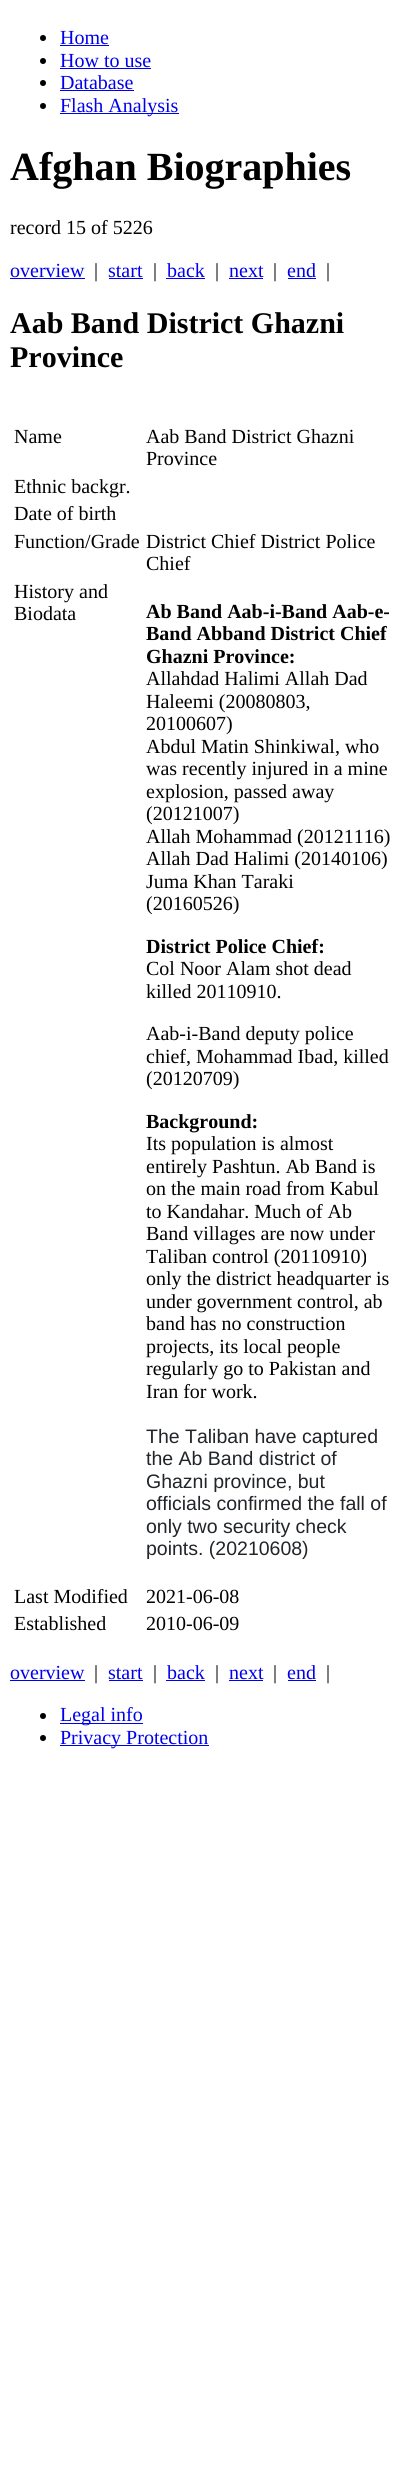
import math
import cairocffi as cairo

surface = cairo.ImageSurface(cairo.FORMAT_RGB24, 405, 2473)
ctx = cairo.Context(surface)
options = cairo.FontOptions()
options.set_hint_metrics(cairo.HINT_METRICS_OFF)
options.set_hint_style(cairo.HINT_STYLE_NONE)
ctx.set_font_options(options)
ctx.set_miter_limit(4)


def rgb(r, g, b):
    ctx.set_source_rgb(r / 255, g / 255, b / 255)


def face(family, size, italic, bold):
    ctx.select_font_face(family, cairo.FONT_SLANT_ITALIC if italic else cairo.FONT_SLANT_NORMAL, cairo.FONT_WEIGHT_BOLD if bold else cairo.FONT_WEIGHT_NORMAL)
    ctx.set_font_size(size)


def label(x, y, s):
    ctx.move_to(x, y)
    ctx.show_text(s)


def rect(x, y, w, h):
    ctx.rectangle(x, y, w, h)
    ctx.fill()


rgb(255, 255, 255)
ctx.paint()
rgb(0, 0, 0)
ctx.arc(43, 38, 3, 0, 2 * math.pi)
ctx.fill()
face('Liberation Serif', 20, 0, 0)
rgb(0, 0, 238)
label(60, 44, 'Home')
rect(60, 45, 49, 1)
rgb(0, 0, 0)
ctx.new_path()
ctx.arc(43, 61, 3, 0, 2 * math.pi)
ctx.fill()
rgb(0, 0, 238)
label(60, 67, 'How to use')
rect(60, 68, 91, 1)
rgb(0, 0, 0)
ctx.new_path()
ctx.arc(43, 83, 3, 0, 2 * math.pi)
ctx.fill()
rgb(0, 0, 238)
label(60, 89, 'Database')
rect(60, 90, 74, 1)
rgb(0, 0, 0)
ctx.new_path()
ctx.arc(43, 106, 3, 0, 2 * math.pi)
ctx.fill()
rgb(0, 0, 238)
rect(60, 113, 119, 1)
label(60, 112, 'Flash Analysis')
face('Liberation Serif', 40, 0, 1)
rgb(0, 0, 0)
label(10, 180, 'Afghan Biographies')
face('Liberation Serif', 20, 0, 0)
label(10, 234, 'record 15 of 5226')
rgb(0, 0, 238)
label(10, 277, 'overview')
rect(10, 278, 75, 1)
rgb(0, 0, 0)
label(94, 277, '|')
rgb(0, 0, 238)
label(108, 277, 'start')
rect(109, 278, 34, 1)
rgb(0, 0, 0)
label(153, 277, '|')
rgb(0, 0, 238)
label(167, 277, 'back')
rect(166, 278, 39, 1)
rgb(0, 0, 0)
label(215, 277, '|')
rgb(0, 0, 238)
label(229, 277, 'next')
rect(229, 278, 34, 1)
rgb(0, 0, 0)
label(273, 277, '|')
rgb(0, 0, 238)
label(287, 277, 'end')
rect(288, 278, 28, 1)
rgb(0, 0, 0)
label(326, 277, '|')
face('Liberation Serif', 30, 0, 1)
label(10, 333, 'Aab Band District Ghazni')
label(10, 367, 'Province')
face('Liberation Serif', 20, 0, 0)
label(14, 443, 'Name')
label(146, 443, 'Aab Band District Ghazni')
label(146, 465, 'Province')
label(14, 493, 'Ethnic backgr.')
label(14, 520, 'Date of birth')
label(14, 548, 'Function/Grade')
label(146, 548, 'District Chief District Police')
label(146, 570, 'Chief')
label(14, 598, 'History and')
label(14, 620, 'Biodata')
face('Liberation Serif', 20, 0, 1)
label(146, 618, 'Ab Band Aab-i-Band Aab-e-')
label(146, 640, 'Band Abband District Chief')
label(146, 663, 'Ghazni Province:')
face('Liberation Serif', 20, 0, 0)
label(146, 685, 'Allahdad Halimi Allah Dad')
label(146, 708, 'Haleemi (20080803,')
label(146, 730, '20100607)')
label(146, 753, 'Abdul Matin Shinkiwal, who')
label(146, 775, 'was recently injured in a mine')
label(146, 798, 'explosion, passed away')
label(146, 820, '(20121007)')
label(146, 843, 'Allah Mohammad (20121116)')
label(146, 865, 'Allah Dad Halimi (20140106)')
label(146, 888, 'Juma Khan Taraki')
label(146, 910, '(20160526)')
face('Liberation Serif', 20, 0, 1)
label(146, 953, 'District Police Chief:')
face('Liberation Serif', 20, 0, 0)
label(146, 975, 'Col Noor Alam shot dead')
label(146, 998, 'killed 20110910.')
label(146, 1040, 'Aab-i-Band deputy police')
label(146, 1063, 'chief, Mohammad Ibad, killed')
label(146, 1085, '(20120709)')
face('Liberation Serif', 20, 0, 1)
label(146, 1128, 'Background:')
face('Liberation Serif', 20, 0, 0)
label(146, 1150, 'Its population is almost')
label(146, 1173, 'entirely Pashtun. Ab Band is')
label(146, 1195, 'on the main road from Kabul')
label(146, 1218, 'to Kandahar. Much of Ab')
label(146, 1240, 'Band villages are now under')
label(146, 1263, 'Taliban control (20110910)')
label(146, 1285, 'only the district headquarter is')
label(146, 1308, 'under government control, ab')
label(146, 1330, 'band has no construction')
label(146, 1353, 'projects, its local people')
label(146, 1375, 'regularly go to Pakistan and')
label(146, 1398, 'Iran for work.')
face('Liberation Sans', 19.5, 0, 0)
rgb(33, 37, 41)
label(146, 1443, 'The Taliban have captured')
label(146, 1465, 'the Ab Band district of')
label(146, 1488, 'Ghazni province, but')
label(146, 1510, 'officials confirmed the fall of')
label(146, 1533, 'only two security check')
label(146, 1555, 'points. (20210608)')
face('Liberation Serif', 20, 0, 0)
rgb(0, 0, 0)
label(14, 1603, 'Last Modified')
label(146, 1603, '2021-06-08')
label(14, 1630, 'Established')
label(146, 1630, '2010-06-09')
rgb(0, 0, 238)
label(10, 1679, 'overview')
rect(10, 1680, 75, 1)
rgb(0, 0, 0)
label(94, 1679, '|')
rgb(0, 0, 238)
label(108, 1679, 'start')
rect(109, 1680, 34, 1)
rgb(0, 0, 0)
label(153, 1679, '|')
rgb(0, 0, 238)
label(167, 1679, 'back')
rect(166, 1680, 39, 1)
rgb(0, 0, 0)
label(215, 1679, '|')
rgb(0, 0, 238)
label(229, 1679, 'next')
rect(229, 1680, 34, 1)
rgb(0, 0, 0)
label(273, 1679, '|')
rgb(0, 0, 238)
label(287, 1679, 'end')
rect(288, 1680, 28, 1)
rgb(0, 0, 0)
label(326, 1679, '|')
ctx.new_path()
ctx.arc(43, 1716, 3, 0, 2 * math.pi)
ctx.fill()
rgb(0, 0, 238)
rect(60, 1723, 83, 1)
label(60, 1721, 'Legal info')
rgb(0, 0, 0)
ctx.new_path()
ctx.arc(43, 1738, 3, 0, 2 * math.pi)
ctx.fill()
rgb(0, 0, 238)
rect(60, 1745, 149, 1)
label(60, 1744, 'Privacy Protection')
surface.write_to_png('render.png')
